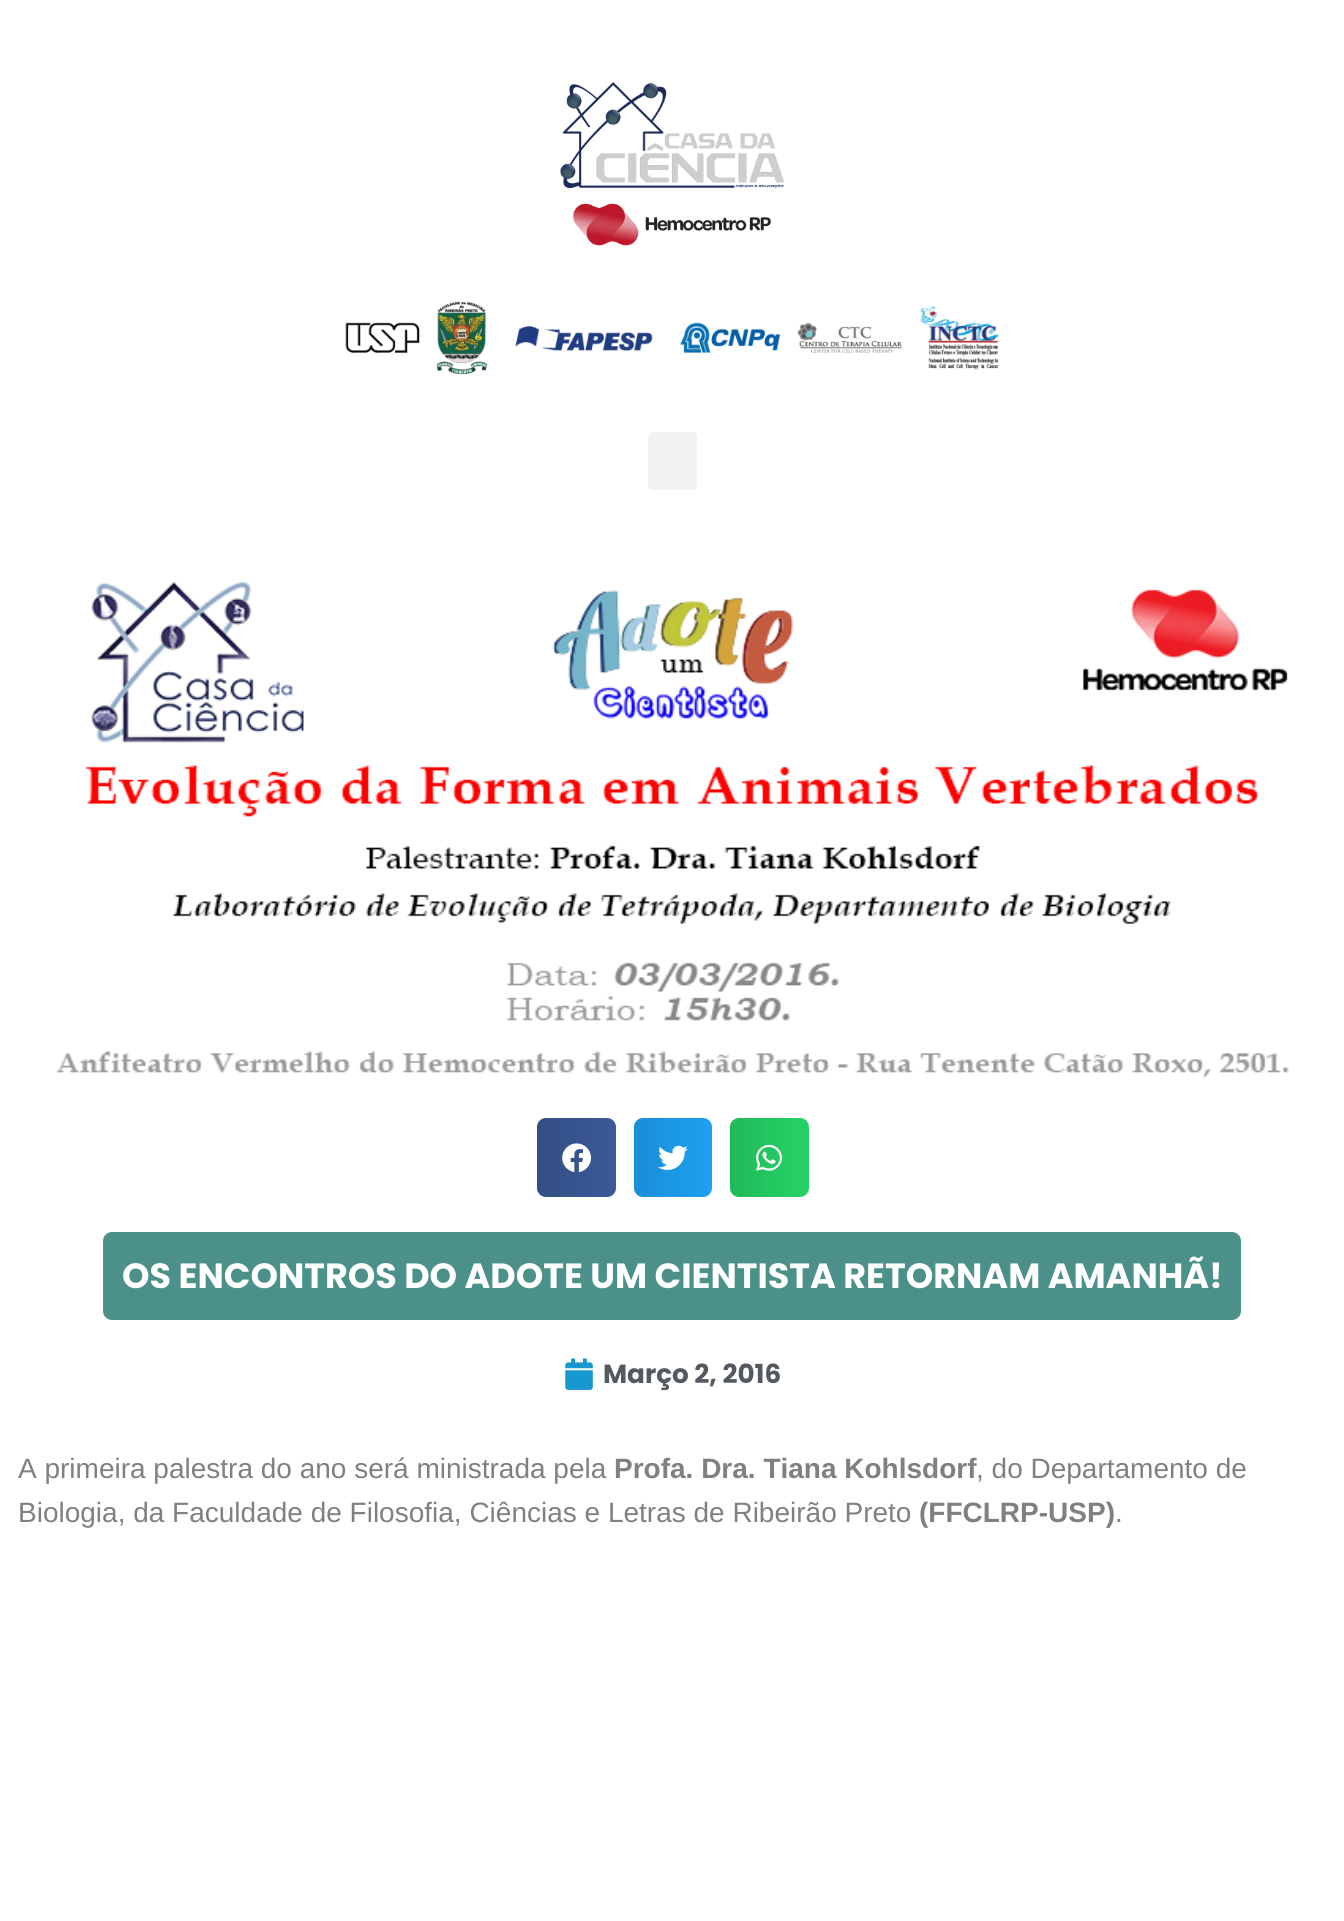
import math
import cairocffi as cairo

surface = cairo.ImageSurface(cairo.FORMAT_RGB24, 1344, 1921)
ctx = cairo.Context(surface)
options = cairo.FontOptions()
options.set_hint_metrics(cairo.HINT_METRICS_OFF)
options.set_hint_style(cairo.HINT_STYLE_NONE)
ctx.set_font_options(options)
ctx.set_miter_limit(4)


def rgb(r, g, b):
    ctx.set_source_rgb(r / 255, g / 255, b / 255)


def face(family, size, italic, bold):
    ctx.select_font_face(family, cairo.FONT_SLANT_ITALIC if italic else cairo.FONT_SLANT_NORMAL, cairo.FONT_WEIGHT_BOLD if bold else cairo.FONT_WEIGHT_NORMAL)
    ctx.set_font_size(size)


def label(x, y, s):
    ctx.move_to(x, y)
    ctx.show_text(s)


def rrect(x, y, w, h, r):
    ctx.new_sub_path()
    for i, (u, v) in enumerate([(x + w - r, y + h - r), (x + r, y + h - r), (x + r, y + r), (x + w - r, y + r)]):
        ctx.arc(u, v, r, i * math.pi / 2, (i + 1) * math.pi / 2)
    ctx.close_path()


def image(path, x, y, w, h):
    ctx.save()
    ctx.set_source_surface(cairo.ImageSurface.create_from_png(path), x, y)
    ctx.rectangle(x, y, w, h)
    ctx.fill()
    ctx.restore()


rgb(255, 255, 255)
ctx.paint()
image('image0.png', 560, 82, 224, 164)
image('image1.png', 345, 301, 654, 74)
rgb(242, 242, 242)
rrect(648, 432, 49, 58, 5)
ctx.fill()
image('image2.png', 56, 582, 1233, 496)
rgb(59, 89, 152)
rrect(537, 1118, 79, 79, 9)
ctx.fill()
gradient = cairo.LinearGradient(537, 1158, 616, 1158)
gradient.add_color_stop_rgba(0, 0, 0, 0, 0.12)
gradient.add_color_stop_rgba(1, 0, 0, 0, 0)
ctx.set_source(gradient)
rrect(537, 1118, 79, 79, 9)
ctx.fill()
image('image3.png', 562, 1143, 29, 29)
rgb(29, 161, 242)
rrect(634, 1118, 78, 79, 9)
ctx.fill()
gradient = cairo.LinearGradient(634, 1158, 712, 1158)
gradient.add_color_stop_rgba(0, 0, 0, 0, 0.12)
gradient.add_color_stop_rgba(1, 0, 0, 0, 0)
ctx.set_source(gradient)
rrect(634, 1118, 78, 79, 9)
ctx.fill()
image('image4.png', 658, 1145, 30, 25)
rgb(37, 211, 102)
rrect(730, 1118, 79, 79, 9)
ctx.fill()
gradient = cairo.LinearGradient(730, 1158, 809, 1158)
gradient.add_color_stop_rgba(0, 0, 0, 0, 0.12)
gradient.add_color_stop_rgba(1, 0, 0, 0, 0)
ctx.set_source(gradient)
rrect(730, 1118, 79, 79, 9)
ctx.fill()
image('image5.png', 756, 1144, 26, 27)
rgb(75, 144, 137)
rrect(103, 1232, 1138, 88, 9)
ctx.fill()
face('Poppins', 35, 0, 1)
rgb(255, 255, 255)
label(122, 1288, 'OS ENCONTROS DO ADOTE UM CIENTISTA RETORNAM AMANHÃ!')
image('image6.png', 565, 1358, 28, 32)
face('Poppins', 26.25, 0, 1)
rgb(84, 89, 95)
label(603, 1383, 'Março 2, 2016')
face('Liberation Sans', 28, 0, 0)
rgb(128, 128, 128)
label(18, 1478, 'A primeira palestra do ano será ministrada pela')
face('Liberation Sans', 28, 0, 1)
label(614, 1478, 'Profa. Dra. Tiana Kohlsdorf')
face('Liberation Sans', 28, 0, 0)
label(976, 1478, ', do Departamento de')
label(18, 1522, 'Biologia, da Faculdade de Filosofia, Ciências e Letras de Ribeirão Preto')
face('Liberation Sans', 28, 0, 1)
label(919, 1522, '(FFCLRP-USP)')
face('Liberation Sans', 28, 0, 0)
label(1115, 1522, '.')
surface.write_to_png('render.png')
